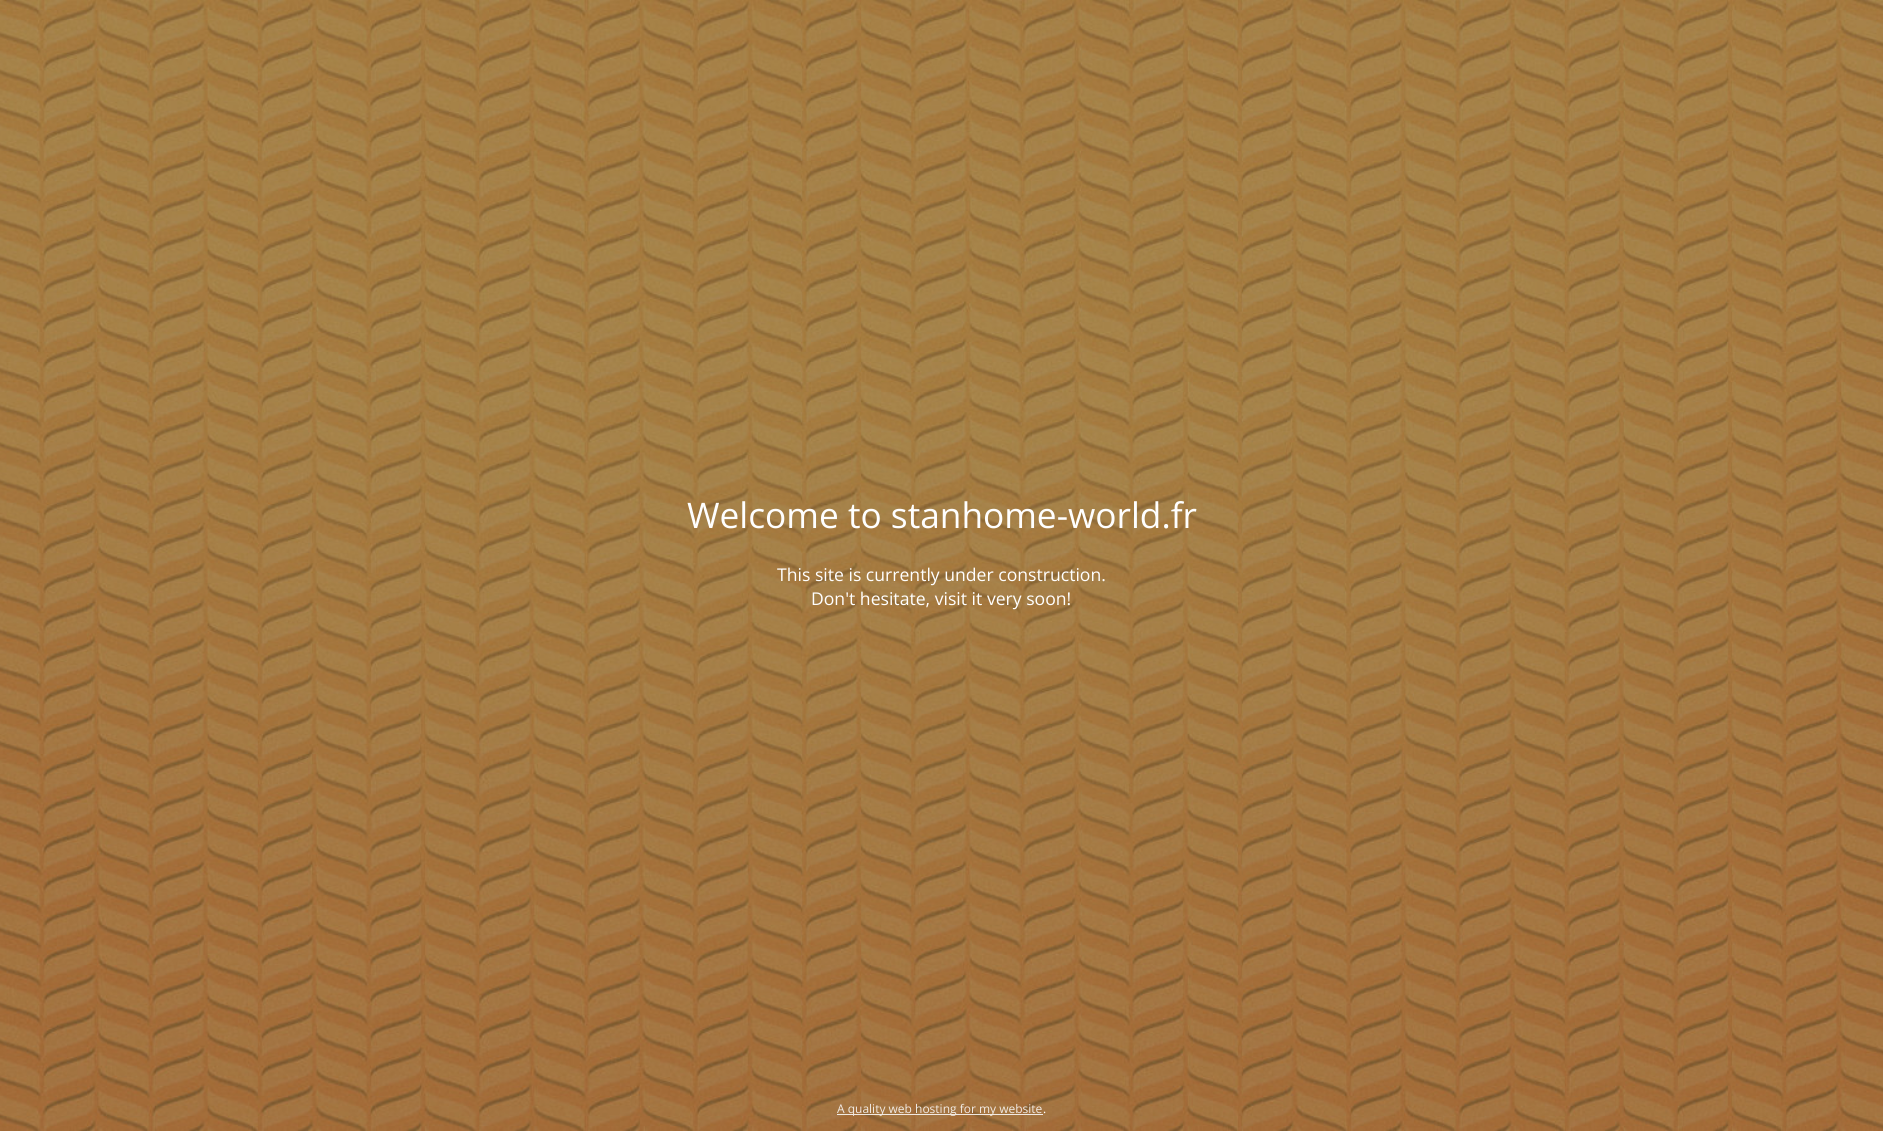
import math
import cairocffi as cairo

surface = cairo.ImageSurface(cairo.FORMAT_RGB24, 1883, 1131)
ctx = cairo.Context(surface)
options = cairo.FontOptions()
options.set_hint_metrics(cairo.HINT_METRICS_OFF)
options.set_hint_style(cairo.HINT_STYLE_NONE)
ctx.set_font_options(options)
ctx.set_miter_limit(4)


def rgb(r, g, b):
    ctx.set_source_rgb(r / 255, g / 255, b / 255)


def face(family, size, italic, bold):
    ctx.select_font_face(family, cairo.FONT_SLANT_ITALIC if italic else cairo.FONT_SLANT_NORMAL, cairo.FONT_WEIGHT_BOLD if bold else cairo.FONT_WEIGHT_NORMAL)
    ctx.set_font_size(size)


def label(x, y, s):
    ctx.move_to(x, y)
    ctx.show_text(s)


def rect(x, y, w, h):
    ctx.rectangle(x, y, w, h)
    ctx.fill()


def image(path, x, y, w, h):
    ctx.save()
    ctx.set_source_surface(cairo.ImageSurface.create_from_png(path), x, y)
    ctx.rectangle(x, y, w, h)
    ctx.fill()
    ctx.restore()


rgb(255, 255, 255)
ctx.paint()
image('image0.png', 0, 0, 1883, 1131)
face('Open Sans', 35.25, 0, 0)
rgb(255, 255, 255)
label(687, 528, 'Welcome to stanhome-world.fr')
face('Open Sans', 17.6, 0, 0)
label(777, 581, 'This site is currently under construction.')
label(811, 605, 'Don\'t hesitate, visit it very soon!')
ctx.set_source_rgba(1, 1, 1, 0.85)
rect(837, 1114, 206, 1)
face('Open Sans', 12, 0, 0)
rgb(241, 234, 227)
label(837, 1113, 'A quality web hosting for my website')
rgb(255, 255, 255)
label(1043, 1113, '.')
surface.write_to_png('render.png')
